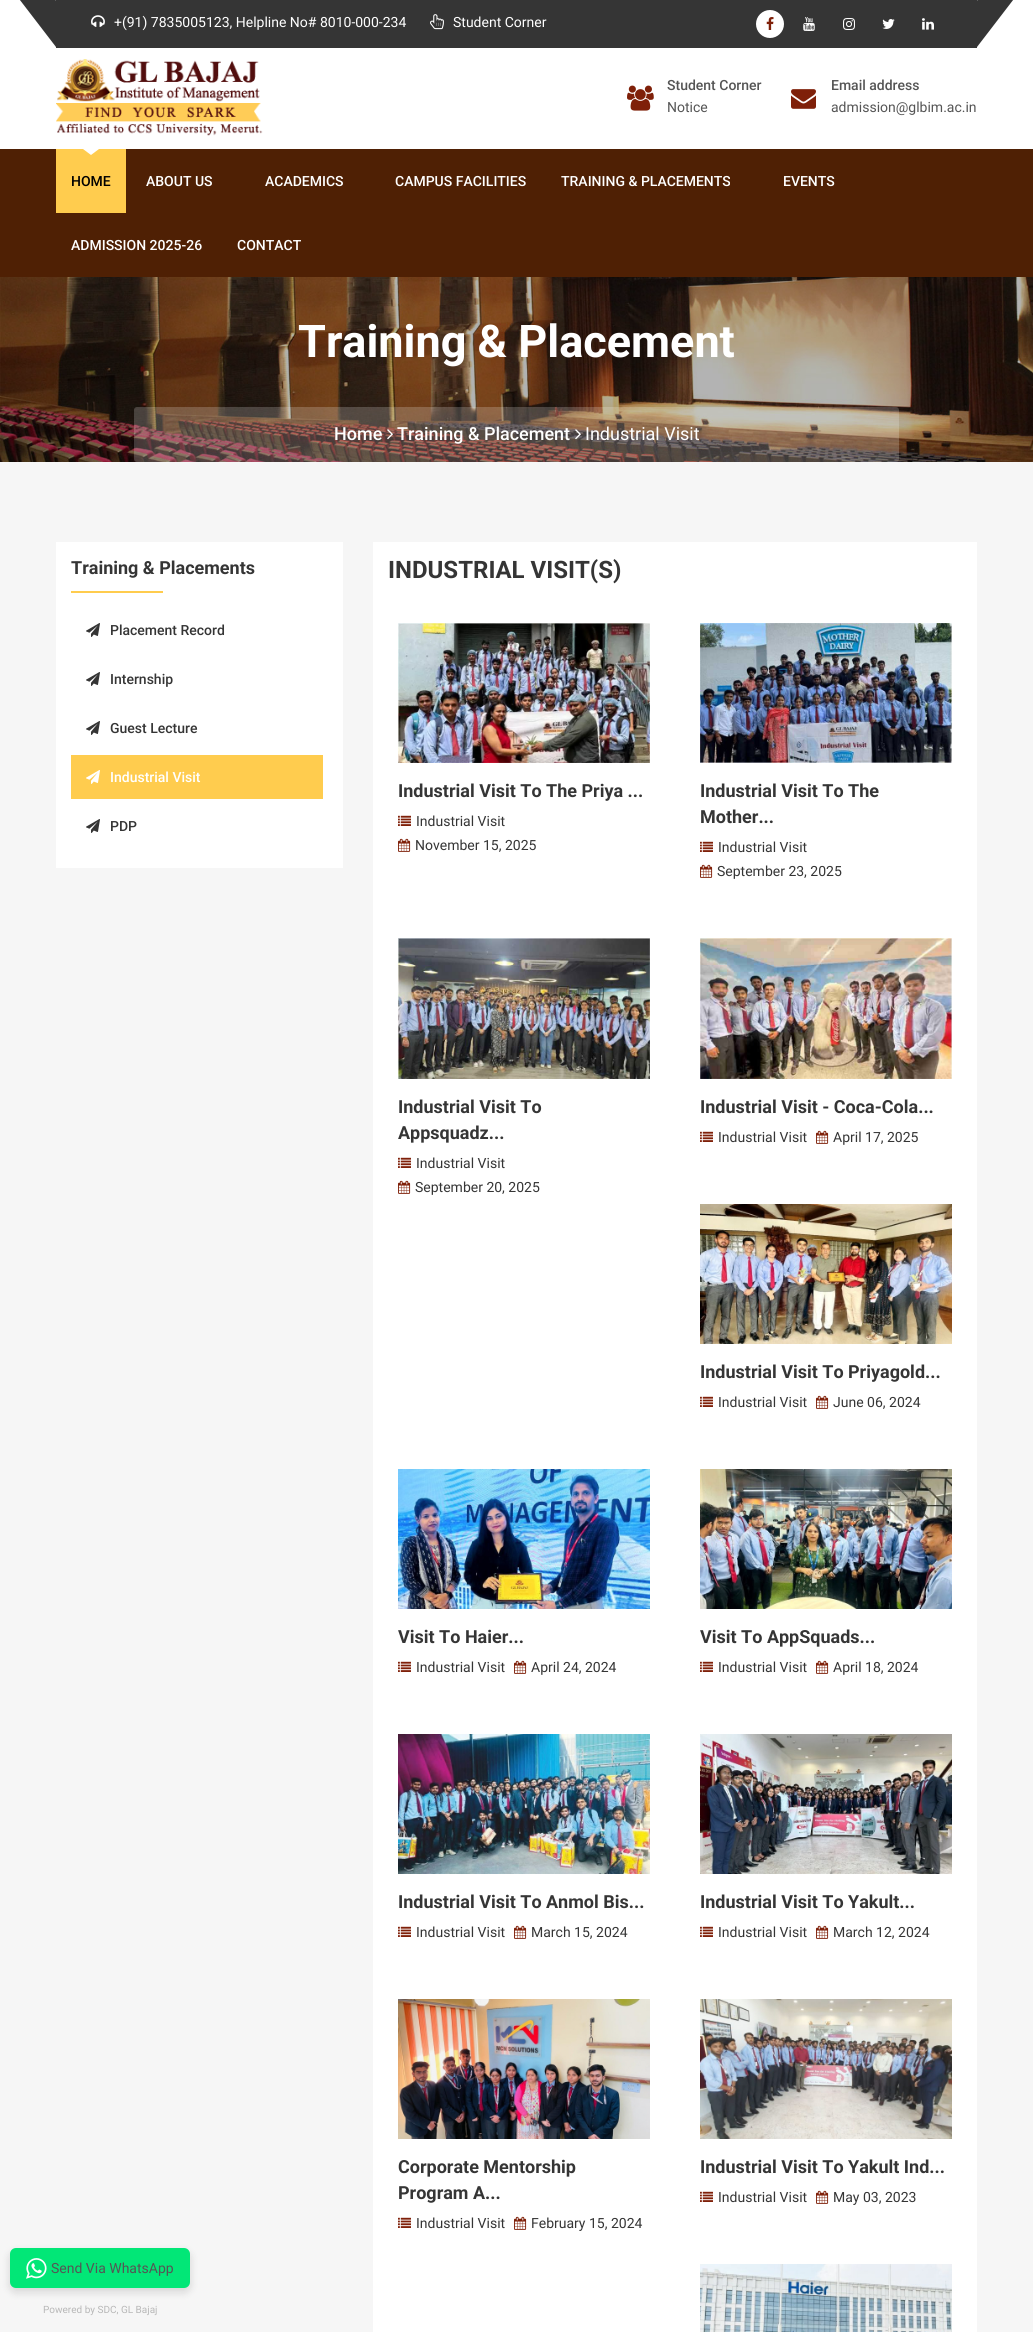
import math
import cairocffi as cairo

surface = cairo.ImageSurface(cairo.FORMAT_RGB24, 1033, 2332)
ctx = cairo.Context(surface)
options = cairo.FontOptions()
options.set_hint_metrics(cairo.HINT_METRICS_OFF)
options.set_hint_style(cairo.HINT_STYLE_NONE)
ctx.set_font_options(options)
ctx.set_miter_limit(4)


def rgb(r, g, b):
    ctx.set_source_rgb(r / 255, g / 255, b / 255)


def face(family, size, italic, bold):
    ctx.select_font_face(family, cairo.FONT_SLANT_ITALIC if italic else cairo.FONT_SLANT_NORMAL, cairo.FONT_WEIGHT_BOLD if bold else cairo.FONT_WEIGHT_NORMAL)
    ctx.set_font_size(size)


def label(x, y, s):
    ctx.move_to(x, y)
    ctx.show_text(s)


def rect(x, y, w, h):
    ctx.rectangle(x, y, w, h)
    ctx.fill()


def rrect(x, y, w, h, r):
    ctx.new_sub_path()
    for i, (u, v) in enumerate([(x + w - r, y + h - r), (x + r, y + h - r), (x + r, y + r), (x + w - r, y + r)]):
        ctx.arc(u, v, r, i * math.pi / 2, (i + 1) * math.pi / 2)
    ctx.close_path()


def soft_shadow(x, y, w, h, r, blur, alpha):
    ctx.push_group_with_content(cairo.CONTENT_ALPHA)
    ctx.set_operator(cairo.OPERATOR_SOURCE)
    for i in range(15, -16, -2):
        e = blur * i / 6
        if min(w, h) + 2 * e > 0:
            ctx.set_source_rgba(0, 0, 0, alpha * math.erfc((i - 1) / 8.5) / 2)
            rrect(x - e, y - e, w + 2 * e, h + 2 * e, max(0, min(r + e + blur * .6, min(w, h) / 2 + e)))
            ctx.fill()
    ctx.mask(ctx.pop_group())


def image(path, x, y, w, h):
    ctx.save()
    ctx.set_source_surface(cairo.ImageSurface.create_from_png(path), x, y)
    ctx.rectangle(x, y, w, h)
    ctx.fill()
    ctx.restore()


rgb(255, 255, 255)
ctx.paint()
rgb(53, 53, 53)
rect(56, 0, 921, 48)
ctx.new_path()
ctx.move_to(13, -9)
ctx.line_to(35, -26)
ctx.line_to(79, 30)
ctx.line_to(56, 47)
ctx.close_path()
ctx.fill()
image('image0.png', 91, 15, 14, 12)
face('Roboto', 14, 0, 0)
rgb(255, 255, 255)
label(114, 27, '+(91) 7835005123, Helpline No# 8010-000-234')
image('image1.png', 430, 14, 14, 16)
label(453, 27, 'Student Corner')
ctx.new_path()
ctx.arc(770, 24, 14, 0, 2 * math.pi)
ctx.fill()
image('image2.png', 766, 17, 8, 13)
image('image3.png', 803, 17, 12, 14)
image('image4.png', 843, 18, 12, 12)
image('image5.png', 882, 19, 13, 10)
image('image6.png', 922, 18, 12, 12)
rgb(53, 53, 53)
ctx.new_path()
ctx.move_to(998, -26)
ctx.line_to(1020, -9)
ctx.line_to(977, 47)
ctx.line_to(954, 30)
ctx.close_path()
ctx.fill()
image('image7.png', 56, 59, 207, 77)
image('image8.png', 627, 85, 27, 26)
face('Roboto Medium', 14, 0, 0)
rgb(85, 85, 85)
label(667, 90, 'Student Corner')
face('Roboto', 14, 0, 0)
label(667, 112, 'Notice')
face('Roboto Medium', 14, 0, 0)
label(831, 90, 'Email address')
image('image9.png', 791, 89, 25, 20)
face('Roboto', 14, 0, 0)
label(831, 112, 'admission@glbim.ac.in')
rgb(79, 32, 4)
rect(0, 149, 1033, 128)
rgb(255, 204, 78)
rect(56, 149, 70, 64)
rgb(255, 255, 255)
ctx.new_path()
ctx.move_to(83, 149)
ctx.line_to(99, 149)
ctx.line_to(91, 155)
ctx.close_path()
ctx.fill()
face('Roboto Medium', 14, 0, 0)
rgb(0, 0, 0)
label(71, 186, 'HOME')
rgb(255, 255, 255)
label(146, 186, 'ABOUT US')
label(265, 186, 'ACADEMICS')
label(395, 186, 'CAMPUS FACILITIES')
label(561, 186, 'TRAINING & PLACEMENTS')
label(783, 186, 'EVENTS')
label(71, 250, 'ADMISSION 2025-26')
label(237, 250, 'CONTACT')
image('image10.png', 0, 277, 1033, 185)
face('Roboto', 45, 0, 1)
label(298, 357, 'Training & Placement')
ctx.set_source_rgba(1, 1, 1, 0.2)
rrect(134, 407, 765, 55, 3)
ctx.fill()
face('Roboto Medium', 18, 0, 0)
rgb(255, 255, 255)
label(334, 440, 'Home')
image('image11.png', 387, 429, 6, 11)
label(397, 440, 'Training & Placement')
image('image12.png', 575, 429, 6, 11)
face('Roboto', 18, 0, 0)
label(585, 440, 'Industrial Visit')
rgb(246, 246, 246)
rect(0, 462, 1033, 1870)
rgb(255, 255, 255)
rect(56, 542, 287, 326)
face('Roboto', 18, 0, 1)
rgb(53, 53, 53)
label(71, 574, 'Training & Placements')
rgb(255, 204, 78)
rect(71, 591, 92, 2)
image('image13.png', 86, 623, 14, 14)
face('Roboto Medium', 14, 0, 0)
rgb(53, 53, 53)
label(110, 635, 'Placement Record')
image('image13.png', 86, 672, 14, 14)
label(110, 684, 'Internship')
image('image13.png', 86, 721, 14, 14)
label(110, 733, 'Guest Lecture')
rgb(255, 204, 78)
rect(71, 755, 252, 44)
image('image14.png', 86, 770, 14, 14)
rgb(255, 255, 255)
label(110, 782, 'Industrial Visit')
image('image13.png', 86, 819, 14, 14)
rgb(53, 53, 53)
label(110, 831, 'PDP')
rgb(255, 255, 255)
rect(373, 542, 604, 1790)
face('Roboto', 24, 0, 1)
rgb(53, 53, 53)
label(388, 578, 'INDUSTRIAL VISIT(S)')
image('image15.png', 398, 623, 252, 140)
face('Roboto', 18, 0, 1)
label(398, 797, 'Industrial Visit To The Priya ...')
image('image16.png', 398, 815, 13, 11)
face('Roboto', 14, 0, 0)
label(416, 826, 'Industrial Visit')
image('image17.png', 398, 838, 13, 14)
label(415, 850, 'November 15, 2025')
image('image18.png', 700, 623, 252, 140)
face('Roboto', 18, 0, 1)
label(700, 797, 'Industrial Visit To The')
label(700, 823, 'Mother...')
image('image16.png', 700, 841, 13, 11)
face('Roboto', 14, 0, 0)
label(718, 852, 'Industrial Visit')
image('image17.png', 700, 864, 13, 14)
label(717, 876, 'September 23, 2025')
image('image19.png', 398, 938, 252, 141)
face('Roboto', 18, 0, 1)
label(398, 1113, 'Industrial Visit To')
label(398, 1139, 'Appsquadz...')
image('image16.png', 398, 1157, 13, 11)
face('Roboto', 14, 0, 0)
label(416, 1168, 'Industrial Visit')
image('image17.png', 398, 1180, 13, 14)
label(415, 1192, 'September 20, 2025')
image('image20.png', 700, 938, 252, 141)
face('Roboto', 18, 0, 1)
label(700, 1113, 'Industrial Visit - Coca-Cola...')
image('image16.png', 700, 1131, 13, 11)
face('Roboto', 14, 0, 0)
label(718, 1142, 'Industrial Visit')
image('image17.png', 816, 1130, 13, 14)
label(833, 1142, 'April 17, 2025')
image('image21.png', 700, 1204, 252, 140)
face('Roboto', 18, 0, 1)
label(700, 1378, 'Industrial Visit To Priyagold...')
image('image16.png', 700, 1396, 13, 11)
face('Roboto', 14, 0, 0)
label(718, 1407, 'Industrial Visit')
image('image17.png', 816, 1395, 13, 14)
label(833, 1407, 'June 06, 2024')
image('image22.png', 398, 1469, 252, 140)
face('Roboto', 18, 0, 1)
label(398, 1643, 'Visit To Haier...')
image('image16.png', 398, 1661, 13, 11)
face('Roboto', 14, 0, 0)
label(416, 1672, 'Industrial Visit')
image('image17.png', 514, 1660, 13, 14)
label(531, 1672, 'April 24, 2024')
image('image23.png', 700, 1469, 252, 140)
face('Roboto', 18, 0, 1)
label(700, 1643, 'Visit To AppSquads...')
image('image16.png', 700, 1661, 13, 11)
face('Roboto', 14, 0, 0)
label(718, 1672, 'Industrial Visit')
image('image17.png', 816, 1660, 13, 14)
label(833, 1672, 'April 18, 2024')
image('image24.png', 398, 1734, 252, 140)
face('Roboto', 18, 0, 1)
label(398, 1908, 'Industrial Visit To Anmol Bis...')
image('image16.png', 398, 1926, 13, 11)
face('Roboto', 14, 0, 0)
label(416, 1937, 'Industrial Visit')
image('image17.png', 514, 1925, 13, 14)
label(531, 1937, 'March 15, 2024')
image('image25.png', 700, 1734, 252, 140)
face('Roboto', 18, 0, 1)
label(700, 1908, 'Industrial Visit To Yakult...')
image('image16.png', 700, 1926, 13, 11)
face('Roboto', 14, 0, 0)
label(718, 1937, 'Industrial Visit')
image('image17.png', 816, 1925, 13, 14)
label(833, 1937, 'March 12, 2024')
image('image26.png', 398, 1999, 252, 140)
face('Roboto', 18, 0, 1)
label(398, 2173, 'Corporate Mentorship')
label(398, 2199, 'Program A...')
image('image16.png', 398, 2217, 13, 11)
face('Roboto', 14, 0, 0)
label(416, 2228, 'Industrial Visit')
image('image17.png', 514, 2216, 13, 14)
label(531, 2228, 'February 15, 2024')
image('image27.png', 700, 1999, 252, 140)
face('Roboto', 18, 0, 1)
label(700, 2173, 'Industrial Visit To Yakult Ind...')
image('image16.png', 700, 2191, 13, 11)
face('Roboto', 14, 0, 0)
label(718, 2202, 'Industrial Visit')
image('image17.png', 816, 2190, 13, 14)
label(833, 2202, 'May 03, 2023')
image('image28.png', 700, 2264, 252, 68)
rgb(0, 0, 0)
soft_shadow(10, 2252, 180, 40, 6, 4.5, 0.14)
rgb(2, 231, 119)
rrect(10, 2248, 180, 40, 6)
ctx.fill()
image('image29.png', 26, 2258, 21, 21)
rgb(85, 85, 85)
label(51, 2273, 'Send Via WhatsApp')
face('Roboto', 10, 0, 0)
rgb(184, 184, 184)
label(43, 2313, 'Powered by SDC, GL Bajaj')
surface.write_to_png('render.png')
